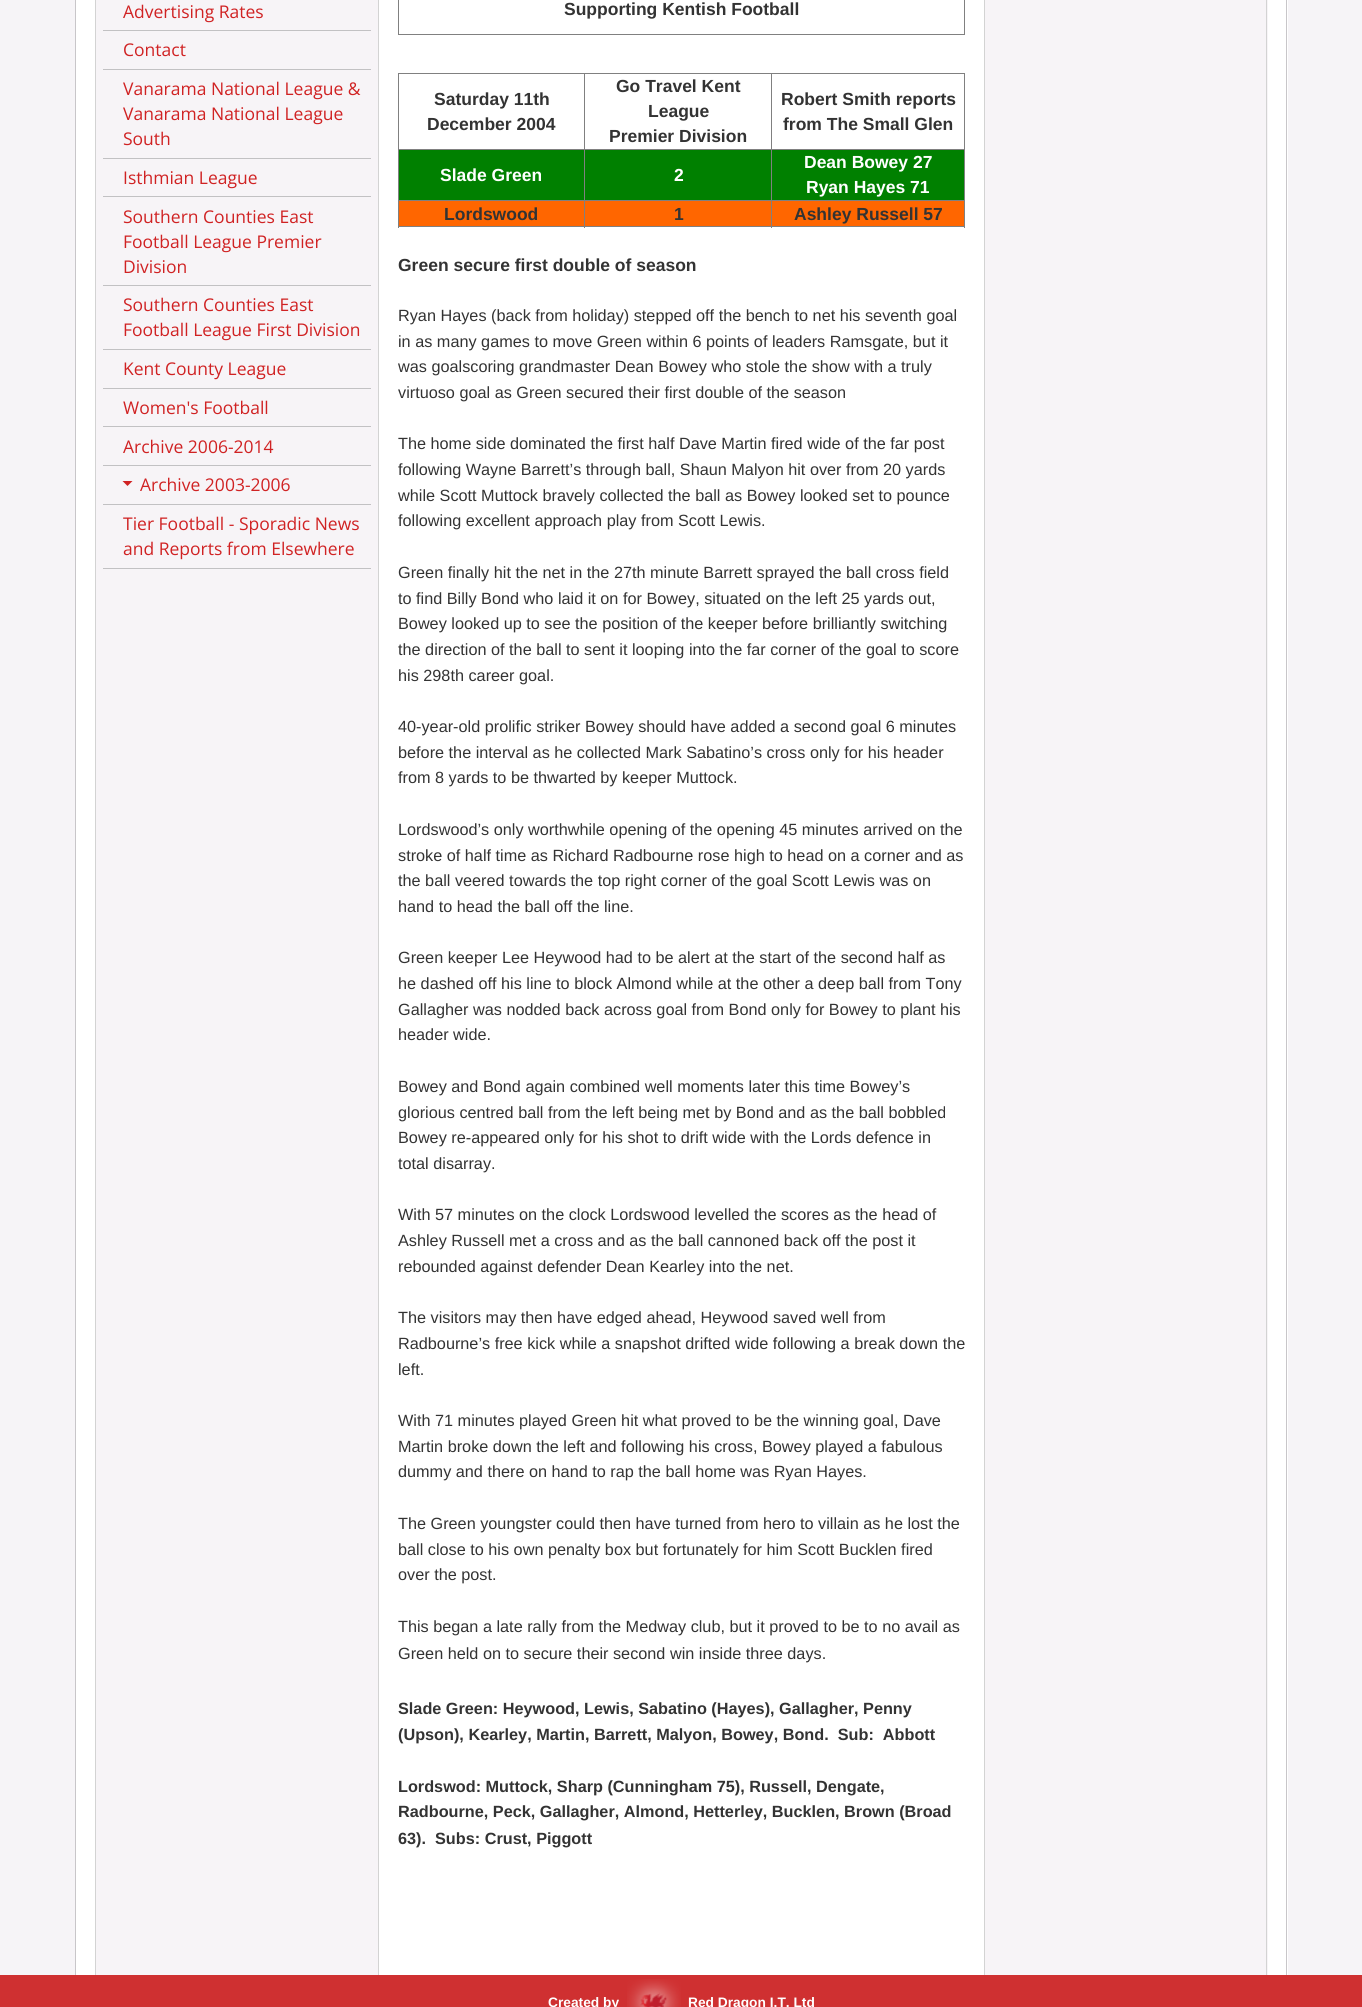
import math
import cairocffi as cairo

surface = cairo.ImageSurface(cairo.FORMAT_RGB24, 1362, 2007)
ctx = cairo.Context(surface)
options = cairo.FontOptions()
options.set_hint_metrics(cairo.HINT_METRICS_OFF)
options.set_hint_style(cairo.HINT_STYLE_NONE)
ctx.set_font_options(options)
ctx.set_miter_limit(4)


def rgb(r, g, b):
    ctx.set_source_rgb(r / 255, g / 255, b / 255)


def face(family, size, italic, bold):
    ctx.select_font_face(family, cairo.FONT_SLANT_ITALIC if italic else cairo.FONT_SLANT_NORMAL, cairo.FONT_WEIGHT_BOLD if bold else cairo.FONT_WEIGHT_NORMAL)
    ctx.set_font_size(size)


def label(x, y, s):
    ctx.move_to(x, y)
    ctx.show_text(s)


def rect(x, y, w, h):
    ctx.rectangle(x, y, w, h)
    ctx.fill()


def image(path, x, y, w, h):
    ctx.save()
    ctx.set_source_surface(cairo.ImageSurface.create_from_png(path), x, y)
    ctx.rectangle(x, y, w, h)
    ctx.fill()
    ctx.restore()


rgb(207, 48, 49)
ctx.paint()
rgb(246, 244, 247)
rect(0, 0, 1362, 1975)
rgb(255, 255, 255)
rect(76, 0, 1212, 1975)
rgb(200, 198, 201)
rect(1286, 0, 1, 1975)
rect(75, 0, 1, 1975)
rgb(247, 244, 247)
rect(96, 0, 282, 1975)
rgb(211, 211, 211)
rect(378, 0, 1, 1975)
rect(95, 0, 1, 1975)
rgb(194, 193, 195)
rect(103, 30, 268, 1)
face('Open Sans', 17.5, 0, 0)
rgb(208, 34, 35)
label(123, 18, 'Advertising Rates')
rgb(194, 193, 195)
rect(103, 69, 268, 1)
rgb(208, 34, 35)
label(123, 56, 'Contact')
rgb(194, 193, 195)
rect(103, 158, 268, 1)
rgb(208, 34, 35)
label(123, 95, 'Vanarama National League &')
label(123, 120, 'Vanarama National League')
label(123, 145, 'South')
rgb(194, 193, 195)
rect(103, 196, 268, 1)
rgb(208, 34, 35)
label(123, 184, 'Isthmian League')
rgb(194, 193, 195)
rect(103, 285, 268, 1)
rgb(208, 34, 35)
label(123, 223, 'Southern Counties East')
label(123, 248, 'Football League Premier')
label(123, 273, 'Division')
rgb(194, 193, 195)
rect(103, 349, 268, 1)
rgb(208, 34, 35)
label(123, 311, 'Southern Counties East')
label(123, 336, 'Football League First Division')
rgb(194, 193, 195)
rect(103, 388, 268, 1)
rgb(208, 34, 35)
label(123, 375, 'Kent County League')
rgb(194, 193, 195)
rect(103, 426, 268, 1)
rgb(208, 34, 35)
label(123, 414, 'Women\'s Football')
rgb(194, 193, 195)
rect(103, 465, 268, 1)
rgb(208, 34, 35)
label(123, 453, 'Archive 2006-2014')
rgb(194, 193, 195)
rect(103, 504, 268, 1)
rgb(208, 34, 35)
ctx.new_path()
ctx.move_to(122.5, 481)
ctx.line_to(132.5, 481)
ctx.line_to(127.5, 486)
ctx.close_path()
ctx.fill()
label(140, 491, 'Archive 2003-2006')
rgb(194, 193, 195)
rect(103, 568, 268, 1)
rgb(208, 34, 35)
label(123, 530, 'Tier Football - Sporadic News')
label(123, 555, 'and Reports from Elsewhere')
rgb(128, 128, 128)
rect(964, 0, 1, 35)
rect(398, 34, 567, 1)
rect(398, 0, 1, 35)
face('Liberation Sans', 17.5, 0, 1)
rgb(51, 51, 51)
label(564, 15, 'Supporting Kentish Football')
rgb(128, 128, 128)
rect(398, 73, 567, 1)
rect(964, 73, 1, 155)
rect(398, 226, 567, 1)
rect(398, 73, 1, 155)
rgb(51, 51, 51)
label(434, 105, 'Saturday 11th')
label(427, 130, 'December 2004')
rgb(128, 128, 128)
rect(771, 149, 194, 1)
rect(771, 200, 194, 1)
rect(771, 200, 1, 28)
rect(584, 200, 189, 1)
rect(771, 149, 1, 52)
rect(584, 149, 189, 1)
rect(584, 200, 1, 28)
rect(398, 200, 187, 1)
rect(584, 149, 1, 52)
rect(398, 149, 187, 1)
rect(584, 73, 1, 77)
rgb(51, 51, 51)
label(616, 92, 'Go Travel Kent')
label(648, 117, 'League')
label(609, 142, 'Premier Division')
rgb(128, 128, 128)
rect(771, 73, 1, 77)
rgb(51, 51, 51)
label(781, 105, 'Robert Smith reports')
label(783, 130, 'from The Small Glen')
rgb(0, 128, 0)
rect(399, 150, 185, 50)
rgb(255, 255, 255)
label(440, 181, 'Slade Green')
rgb(0, 128, 0)
rect(585, 150, 186, 50)
rgb(255, 255, 255)
label(674, 181, '2')
rgb(0, 128, 0)
rect(772, 150, 192, 50)
rgb(255, 255, 255)
label(804, 168, 'Dean Bowey 27')
label(806, 193, 'Ryan Hayes 71')
rgb(255, 102, 0)
rect(399, 201, 185, 25)
rgb(51, 51, 51)
label(444, 220, 'Lordswood')
rgb(255, 102, 0)
rect(585, 201, 186, 25)
rgb(51, 51, 51)
label(674, 220, '1')
rgb(255, 102, 0)
rect(772, 201, 192, 25)
rgb(51, 51, 51)
label(794, 220, 'Ashley Russell 57')
label(398, 271, 'Green secure first double of season')
face('Liberation Sans', 16.25, 0, 0)
label(398, 321, 'Ryan Hayes (back from holiday) stepped off the bench to net his seventh goal')
label(398, 347, 'in as many games to move Green within 6 points of leaders Ramsgate, but it')
label(398, 372, 'was goalscoring grandmaster Dean Bowey who stole the show with a truly')
label(398, 398, 'virtuoso goal as Green secured their first double of the season')
label(398, 449, 'The home side dominated the first half Dave Martin fired wide of the far post')
label(398, 475, 'following Wayne Barrett’s through ball, Shaun Malyon hit over from 20 yards')
label(398, 501, 'while Scott Muttock bravely collected the ball as Bowey looked set to pounce')
label(398, 526, 'following excellent approach play from Scott Lewis.')
label(398, 578, 'Green finally hit the net in the 27th minute Barrett sprayed the ball cross field')
label(398, 604, 'to find Billy Bond who laid it on for Bowey, situated on the left 25 yards out,')
label(398, 629, 'Bowey looked up to see the position of the keeper before brilliantly switching')
label(398, 655, 'the direction of the ball to sent it looping into the far corner of the goal to score')
label(398, 681, 'his 298th career goal.')
label(398, 732, '40-year-old prolific striker Bowey should have added a second goal 6 minutes')
label(398, 758, 'before the interval as he collected Mark Sabatino’s cross only for his header')
label(398, 783, 'from 8 yards to be thwarted by keeper Muttock.')
label(398, 835, 'Lordswood’s only worthwhile opening of the opening 45 minutes arrived on the')
label(398, 861, 'stroke of half time as Richard Radbourne rose high to head on a corner and as')
label(398, 886, 'the ball veered towards the top right corner of the goal Scott Lewis was on')
label(398, 912, 'hand to head the ball off the line.')
label(398, 963, 'Green keeper Lee Heywood had to be alert at the start of the second half as')
label(398, 989, 'he dashed off his line to block Almond while at the other a deep ball from Tony')
label(398, 1015, 'Gallagher was nodded back across goal from Bond only for Bowey to plant his')
label(398, 1040, 'header wide.')
label(398, 1092, 'Bowey and Bond again combined well moments later this time Bowey’s')
label(398, 1118, 'glorious centred ball from the left being met by Bond and as the ball bobbled')
label(398, 1143, 'Bowey re-appeared only for his shot to drift wide with the Lords defence in')
label(398, 1169, 'total disarray.')
label(398, 1220, 'With 57 minutes on the clock Lordswood levelled the scores as the head of')
label(398, 1246, 'Ashley Russell met a cross and as the ball cannoned back off the post it')
label(398, 1272, 'rebounded against defender Dean Kearley into the net.')
label(398, 1323, 'The visitors may then have edged ahead, Heywood saved well from')
label(398, 1349, 'Radbourne’s free kick while a snapshot drifted wide following a break down the')
label(398, 1375, 'left.')
label(398, 1426, 'With 71 minutes played Green hit what proved to be the winning goal, Dave')
label(398, 1452, 'Martin broke down the left and following his cross, Bowey played a fabulous')
label(398, 1477, 'dummy and there on hand to rap the ball home was Ryan Hayes.')
label(398, 1529, 'The Green youngster could then have turned from hero to villain as he lost the')
label(398, 1555, 'ball close to his own penalty box but fortunately for him Scott Bucklen fired')
label(398, 1580, 'over the post.')
label(398, 1632, 'This began a late rally from the Medway club, but it proved to be to no avail as')
label(398, 1659, 'Green held on to secure their second win inside three days.')
face('Liberation Sans', 16.25, 0, 1)
label(398, 1714, 'Slade Green: Heywood, Lewis, Sabatino (Hayes), Gallagher, Penny')
label(398, 1740, '(Upson), Kearley, Martin, Barrett, Malyon, Bowey, Bond.  Sub:  Abbott')
label(398, 1792, 'Lordswod: Muttock, Sharp (Cunningham 75), Russell, Dengate,')
label(398, 1817, 'Radbourne, Peck, Gallagher, Almond, Hetterley, Bucklen, Brown (Broad')
label(398, 1844, '63).  Subs: Crust, Piggott')
rgb(247, 244, 247)
rect(985, 0, 283, 1975)
rgb(211, 211, 211)
rect(1266, 0, 1, 1975)
rect(984, 0, 1, 1975)
face('Liberation Sans', 13.75, 0, 1)
rgb(255, 255, 255)
label(548, 2007, 'Created by')
image('image0.png', 627, 1979, 54, 28)
label(688, 2007, 'Red Dragon I.T. Ltd')
surface.write_to_png('render.png')
